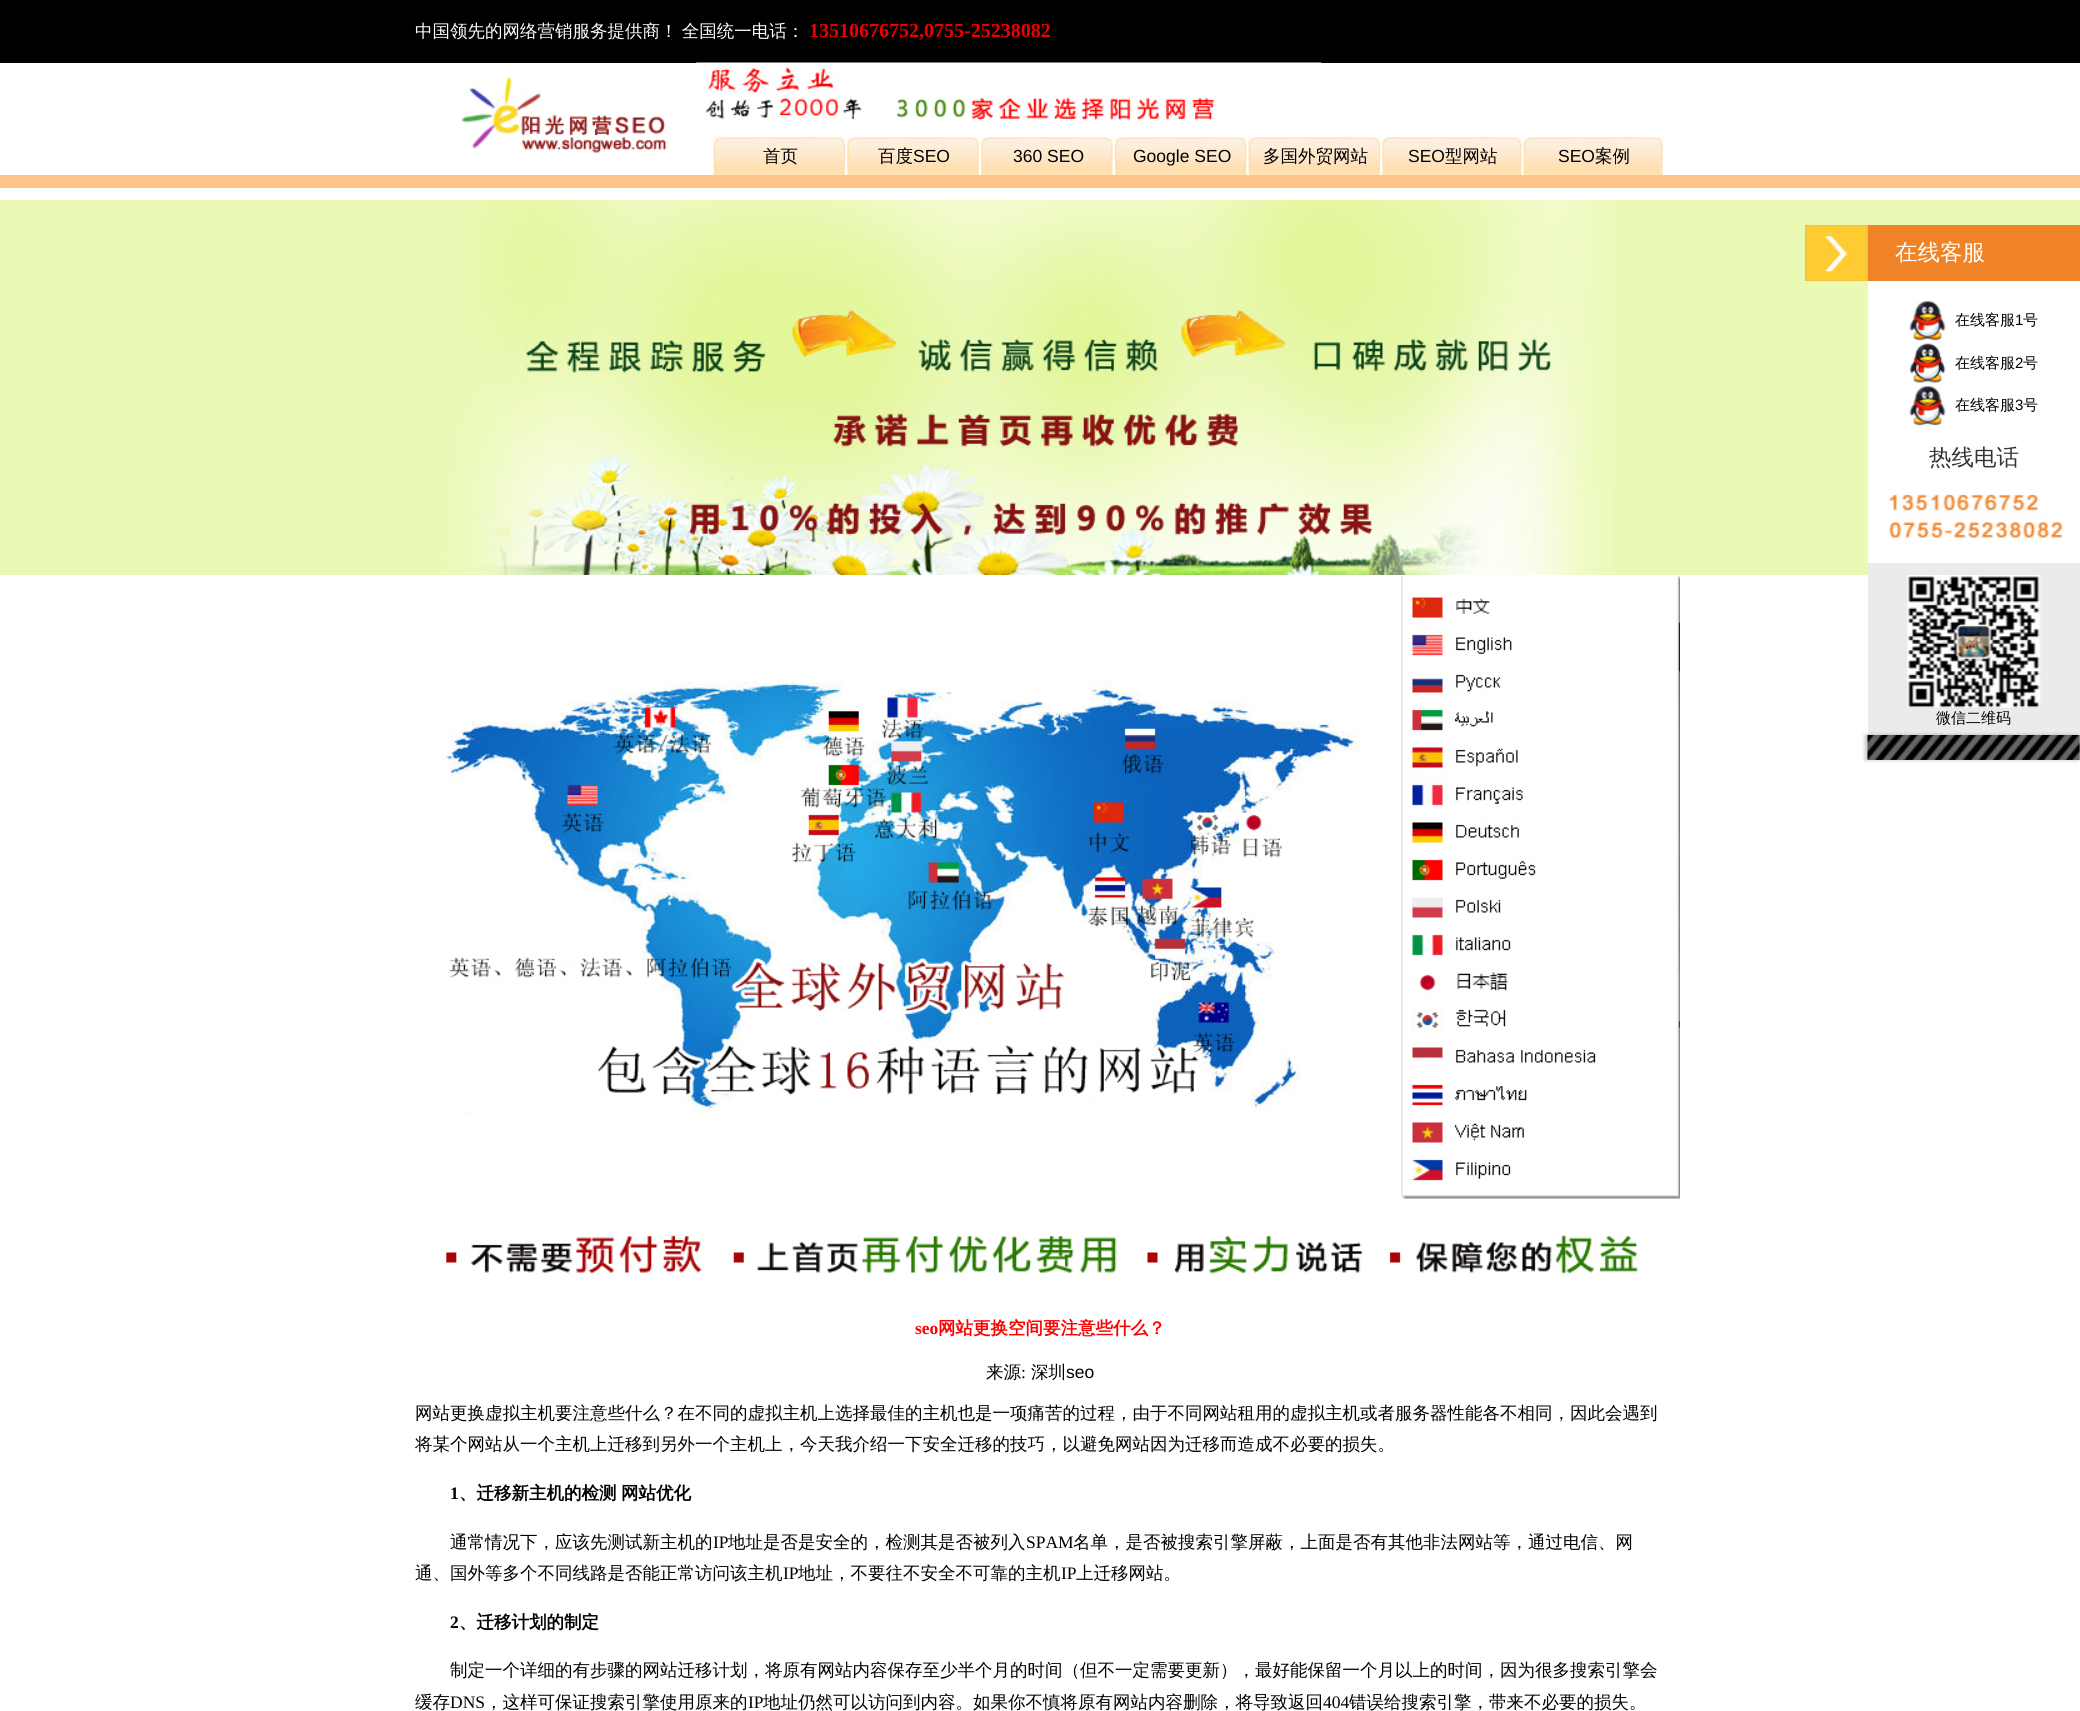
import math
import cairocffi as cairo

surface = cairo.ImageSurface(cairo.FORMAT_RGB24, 2080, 1711)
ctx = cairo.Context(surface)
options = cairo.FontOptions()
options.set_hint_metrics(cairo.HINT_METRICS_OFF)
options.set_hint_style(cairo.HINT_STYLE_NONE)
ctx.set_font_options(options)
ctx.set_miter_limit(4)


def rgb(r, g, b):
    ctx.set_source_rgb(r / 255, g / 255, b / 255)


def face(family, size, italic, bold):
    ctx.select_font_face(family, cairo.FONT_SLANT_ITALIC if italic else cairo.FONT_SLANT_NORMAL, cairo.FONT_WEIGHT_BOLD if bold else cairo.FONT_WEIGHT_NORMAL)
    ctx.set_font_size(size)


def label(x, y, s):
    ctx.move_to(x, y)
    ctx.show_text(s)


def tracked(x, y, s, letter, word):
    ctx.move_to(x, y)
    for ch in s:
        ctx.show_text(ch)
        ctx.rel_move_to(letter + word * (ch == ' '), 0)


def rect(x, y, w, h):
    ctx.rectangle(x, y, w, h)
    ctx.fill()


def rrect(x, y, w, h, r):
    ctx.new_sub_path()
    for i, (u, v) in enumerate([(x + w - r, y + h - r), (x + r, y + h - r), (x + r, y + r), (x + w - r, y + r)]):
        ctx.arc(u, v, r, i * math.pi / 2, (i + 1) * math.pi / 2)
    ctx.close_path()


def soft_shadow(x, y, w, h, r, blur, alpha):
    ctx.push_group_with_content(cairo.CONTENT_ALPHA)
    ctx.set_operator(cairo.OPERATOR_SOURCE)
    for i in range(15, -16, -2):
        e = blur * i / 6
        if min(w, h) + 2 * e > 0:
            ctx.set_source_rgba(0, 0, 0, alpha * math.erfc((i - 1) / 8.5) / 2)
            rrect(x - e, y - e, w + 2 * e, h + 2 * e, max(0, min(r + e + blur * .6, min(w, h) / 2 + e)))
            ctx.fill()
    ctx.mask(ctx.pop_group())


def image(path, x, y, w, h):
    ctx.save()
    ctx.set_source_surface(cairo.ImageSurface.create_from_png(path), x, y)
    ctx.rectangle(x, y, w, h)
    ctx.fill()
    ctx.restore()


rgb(255, 255, 255)
ctx.paint()
rgb(0, 0, 0)
rect(0, 0, 2080, 63)
face('WenQuanYi Zen Hei Medium', 17.5, 0, 0)
rgb(255, 255, 255)
tracked(415, 37, '中国领先的网络营销服务提供商！ 全国统一电话：', 0, -1)
face('Liberation Serif', 20, 0, 1)
rgb(236, 0, 0)
label(809, 37, '13510676752,0755-25238082')
image('image0.png', 461, 76, 206, 77)
image('image1.png', 696, 62, 626, 59)
image('image2.png', 713, 137, 135, 38)
face('WenQuanYi Zen Hei Medium', 17.5, 0, 0)
rgb(0, 0, 0)
label(763, 162, '首页')
image('image3.png', 847, 137, 135, 38)
label(878, 162, '百度')
face('Liberation Sans', 17.5, 0, 0)
label(913, 162, 'SEO')
image('image4.png', 981, 137, 134, 38)
label(1013, 162, '360 SEO')
image('image5.png', 1115, 137, 134, 38)
label(1133, 162, 'Google SEO')
image('image6.png', 1248, 137, 135, 38)
face('WenQuanYi Zen Hei Medium', 17.5, 0, 0)
label(1263, 162, '多国外贸网站')
image('image7.png', 1382, 137, 142, 38)
face('Liberation Sans', 17.5, 0, 0)
label(1408, 162, 'SEO')
face('WenQuanYi Zen Hei Medium', 17.5, 0, 0)
label(1445, 162, '型网站')
image('image8.png', 1523, 137, 142, 38)
face('Liberation Sans', 17.5, 0, 0)
label(1558, 162, 'SEO')
face('WenQuanYi Zen Hei Medium', 17.5, 0, 0)
label(1595, 162, '案例')
rgb(255, 196, 136)
rect(0, 175, 2080, 13)
rgb(234, 249, 180)
rect(0, 200, 2080, 375)
image('image9.png', 443, 200, 1174, 375)
image('image10.png', 1805, 225, 63, 56)
rgb(255, 255, 255)
rect(1868, 281, 212, 294)
rgb(240, 131, 38)
rect(1868, 225, 212, 56)
face('WenQuanYi Zen Hei Medium', 22.5, 0, 0)
rgb(255, 255, 255)
label(1895, 260, '在线客服')
image('image11.png', 1909, 301, 37, 41)
face('WenQuanYi Zen Hei Medium', 15, 0, 0)
rgb(0, 0, 0)
label(1955, 325, '在线客服')
face('Liberation Sans', 15, 0, 0)
label(2015, 325, '1')
face('WenQuanYi Zen Hei Medium', 15, 0, 0)
label(2023, 325, '号')
image('image12.png', 1909, 343, 37, 42)
label(1955, 368, '在线客服')
face('Liberation Sans', 15, 0, 0)
label(2015, 368, '2')
face('WenQuanYi Zen Hei Medium', 15, 0, 0)
label(2023, 368, '号')
image('image11.png', 1909, 386, 37, 41)
label(1955, 410, '在线客服')
face('Liberation Sans', 15, 0, 0)
label(2015, 410, '3')
face('WenQuanYi Zen Hei Medium', 15, 0, 0)
label(2023, 410, '号')
face('WenQuanYi Zen Hei Medium', 22.5, 0, 0)
rgb(51, 51, 51)
label(1929, 465, '热线电话')
image('image13.png', 1889, 494, 174, 44)
rgb(235, 235, 235)
rect(1868, 563, 212, 172)
image('image14.png', 1907, 575, 134, 133)
face('WenQuanYi Zen Hei Medium', 15, 0, 0)
rgb(0, 0, 0)
label(1936, 723, '微信二维码')
rgb(0, 0, 0)
soft_shadow(1865, 735, 213, 25, 0, 2, 0.25)
image('image15.png', 1867, 735, 213, 25)
image('image16.png', 441, 681, 920, 433)
image('image17.png', 1401, 576, 279, 623)
image('image18.png', 446, 1235, 1192, 39)
face('Liberation Serif', 17.5, 0, 1)
rgb(255, 0, 0)
label(915, 1334, 'seo')
face('WenQuanYi Zen Hei', 17.5, 0, 1)
label(938, 1334, '网站更换空间要注意些什么？')
face('WenQuanYi Zen Hei Medium', 17.5, 0, 0)
rgb(0, 0, 0)
label(986, 1378, '来源')
face('Liberation Serif', 17.5, 0, 0)
label(1021, 1378, ':')
face('WenQuanYi Zen Hei Medium', 17.5, 0, 0)
label(1031, 1378, '深圳')
face('Liberation Sans', 17.5, 0, 0)
label(1066, 1378, 'seo')
face('WenQuanYi Zen Hei Medium', 17.5, 0, 0)
label(415, 1419, '网站更换虚拟主机要注意些什么？在不同的虚拟主机上选择最佳的主机也是一项痛苦的过程，由于不同网站租用的虚拟主机或者服务器性能各不相同，因此会遇到')
label(415, 1450, '将某个网站从一个主机上迁移到另外一个主机上，今天我介绍一下安全迁移的技巧，以避免网站因为迁移而造成不必要的损失。')
face('Liberation Serif', 17.5, 0, 1)
label(450, 1499, '1')
face('WenQuanYi Zen Hei', 17.5, 0, 1)
label(459, 1499, '、迁移新主机的检测')
label(621, 1499, '网站优化')
face('WenQuanYi Zen Hei Medium', 17.5, 0, 0)
label(450, 1548, '通常情况下，应该先测试新主机的')
face('Liberation Serif', 17.5, 0, 0)
label(713, 1548, 'IP')
face('WenQuanYi Zen Hei Medium', 17.5, 0, 0)
label(728, 1548, '地址是否是安全的，检测其是否被列入')
face('Liberation Serif', 17.5, 0, 0)
label(1026, 1548, 'SPAM')
face('WenQuanYi Zen Hei Medium', 17.5, 0, 0)
label(1073, 1548, '名单，是否被搜索引擎屏蔽，上面是否有其他非法网站等，通过电信、网')
label(415, 1579, '通、国外等多个不同线路是否能正常访问该主机')
face('Liberation Serif', 17.5, 0, 0)
label(783, 1579, 'IP')
face('WenQuanYi Zen Hei Medium', 17.5, 0, 0)
label(798, 1579, '地址，不要往不安全不可靠的主机')
face('Liberation Serif', 17.5, 0, 0)
label(1061, 1579, 'IP')
face('WenQuanYi Zen Hei Medium', 17.5, 0, 0)
label(1076, 1579, '上迁移网站。')
face('Liberation Serif', 17.5, 0, 1)
label(450, 1628, '2')
face('WenQuanYi Zen Hei', 17.5, 0, 1)
label(459, 1628, '、迁移计划的制定')
face('WenQuanYi Zen Hei Medium', 17.5, 0, 0)
label(450, 1676, '制定一个详细的有步骤的网站迁移计划，将原有网站内容保存至少半个月的时间（但不一定需要更新），最好能保留一个月以上的时间，因为很多搜索引擎会')
label(415, 1708, '缓存')
face('Liberation Serif', 17.5, 0, 0)
label(450, 1708, 'DNS')
face('WenQuanYi Zen Hei Medium', 17.5, 0, 0)
label(485, 1708, '，这样可保证搜索引擎使用原来的')
face('Liberation Serif', 17.5, 0, 0)
label(748, 1708, 'IP')
face('WenQuanYi Zen Hei Medium', 17.5, 0, 0)
label(763, 1708, '地址仍然可以访问到内容。如果你不慎将原有网站内容删除，将导致返回')
face('Liberation Serif', 17.5, 0, 0)
label(1323, 1708, '404')
face('WenQuanYi Zen Hei Medium', 17.5, 0, 0)
label(1349, 1708, '错误给搜索引擎，带来不必要的损失。')
surface.write_to_png('render.png')
